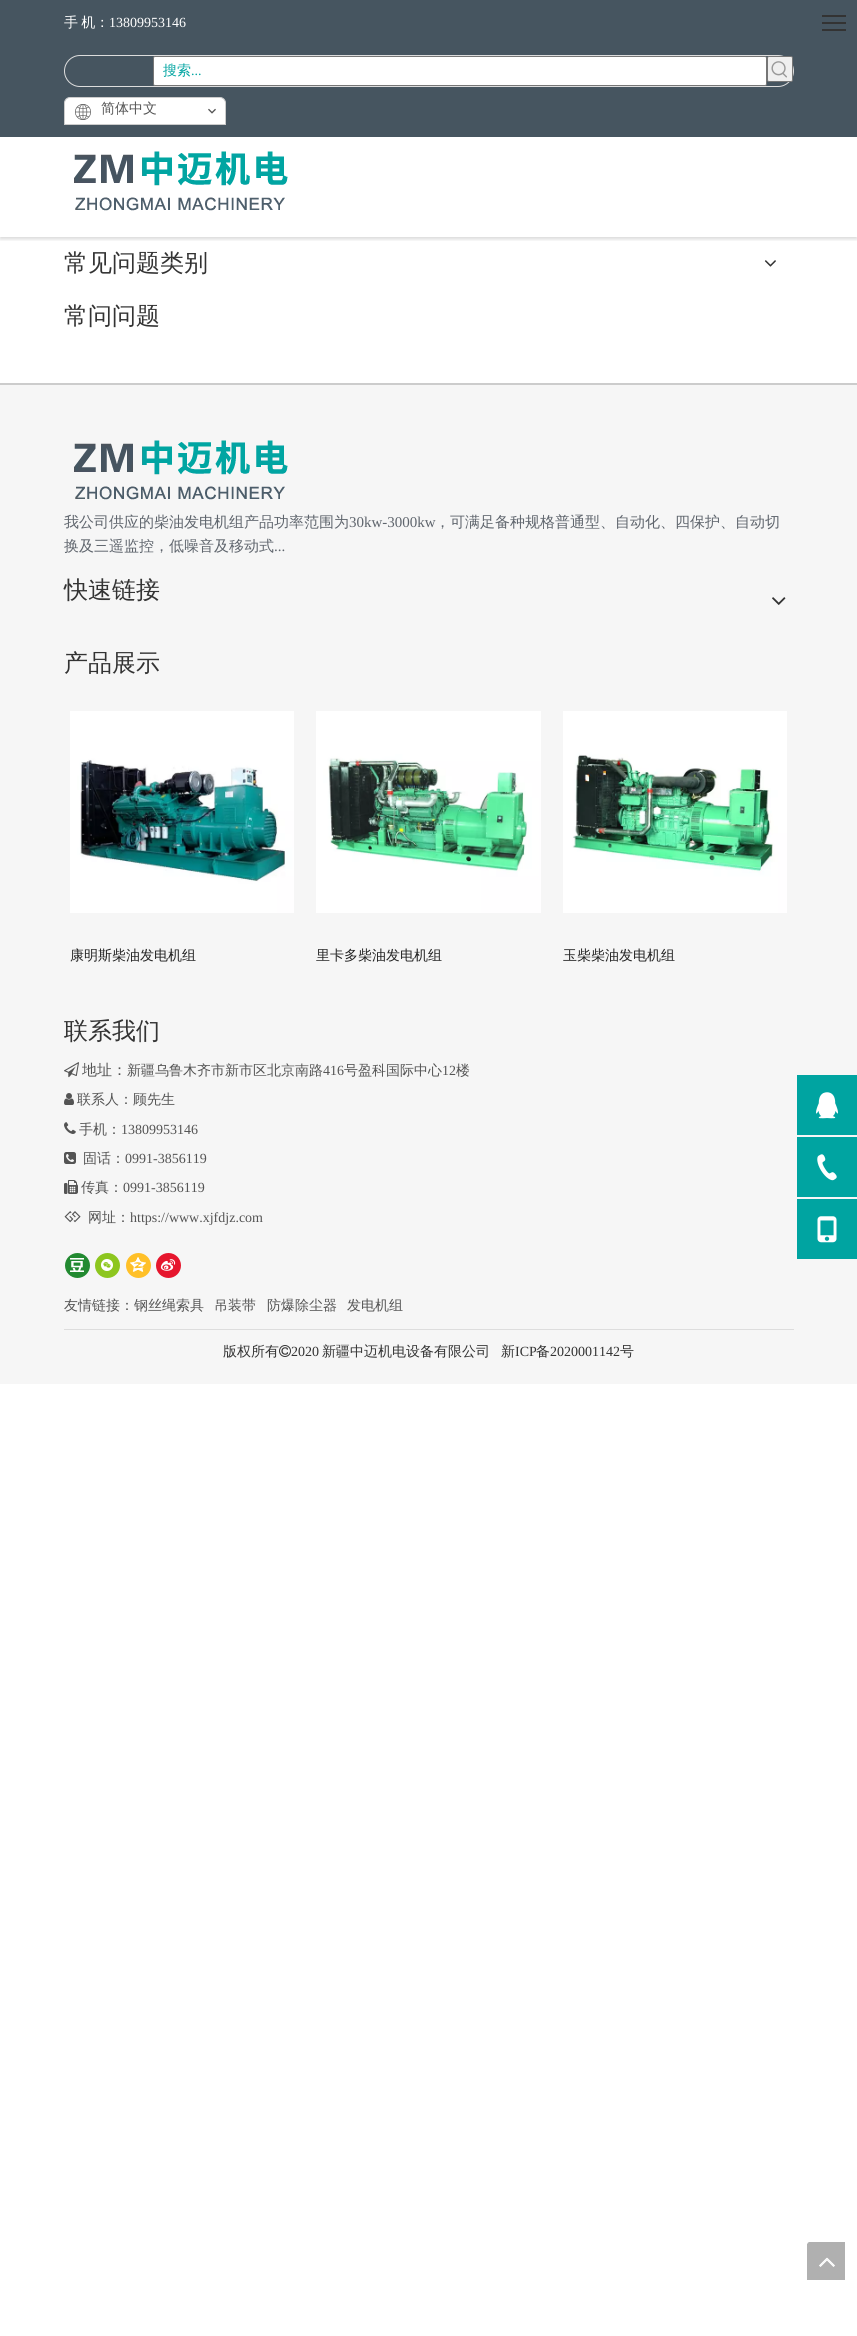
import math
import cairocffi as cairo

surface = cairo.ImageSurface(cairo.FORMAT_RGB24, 857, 2336)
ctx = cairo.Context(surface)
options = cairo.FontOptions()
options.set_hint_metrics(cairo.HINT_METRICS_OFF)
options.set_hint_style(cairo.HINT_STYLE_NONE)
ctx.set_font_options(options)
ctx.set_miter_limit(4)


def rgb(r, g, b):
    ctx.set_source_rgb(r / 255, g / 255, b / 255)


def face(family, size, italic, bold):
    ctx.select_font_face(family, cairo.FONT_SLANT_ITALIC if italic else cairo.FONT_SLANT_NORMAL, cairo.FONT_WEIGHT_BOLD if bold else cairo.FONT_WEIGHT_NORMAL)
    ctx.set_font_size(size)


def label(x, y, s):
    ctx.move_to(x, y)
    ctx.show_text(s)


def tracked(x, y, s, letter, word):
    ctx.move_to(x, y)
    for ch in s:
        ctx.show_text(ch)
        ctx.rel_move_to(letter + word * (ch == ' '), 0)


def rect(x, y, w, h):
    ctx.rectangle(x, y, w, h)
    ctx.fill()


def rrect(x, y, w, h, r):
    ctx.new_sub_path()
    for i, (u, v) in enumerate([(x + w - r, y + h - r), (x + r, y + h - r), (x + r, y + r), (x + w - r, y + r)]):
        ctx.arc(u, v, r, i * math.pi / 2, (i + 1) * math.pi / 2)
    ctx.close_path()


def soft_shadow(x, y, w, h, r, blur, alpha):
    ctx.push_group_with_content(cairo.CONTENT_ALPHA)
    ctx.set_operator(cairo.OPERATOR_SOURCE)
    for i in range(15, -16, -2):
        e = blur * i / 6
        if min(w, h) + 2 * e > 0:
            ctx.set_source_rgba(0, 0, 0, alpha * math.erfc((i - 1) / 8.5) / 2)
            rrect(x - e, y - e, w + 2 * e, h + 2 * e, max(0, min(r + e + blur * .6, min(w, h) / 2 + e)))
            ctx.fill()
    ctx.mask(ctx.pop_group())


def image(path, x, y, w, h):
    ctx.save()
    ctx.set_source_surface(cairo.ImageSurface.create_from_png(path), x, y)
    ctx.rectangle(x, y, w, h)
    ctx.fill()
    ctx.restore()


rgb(255, 255, 255)
ctx.paint()
rgb(70, 85, 96)
rect(0, 0, 857, 137)
ctx.save()
ctx.rectangle(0, 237, 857, 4)
ctx.clip()
rgb(0, 0, 0)
soft_shadow(0, 139, 857, 100, 0, 2, 0.16)
ctx.restore()
rgb(51, 51, 51)
rect(822, 15, 24, 2)
rect(822, 22, 24, 2)
rect(822, 29, 24, 2)
image('image0.png', 74, 151, 214, 60)
face('WenQuanYi Zen Hei Medium', 14, 0, 0)
rgb(255, 255, 255)
tracked(64, 27, '手 机：', 0, -1)
face('Liberation Serif', 14, 0, 0)
label(109, 27, '13809953146')
rrect(64.5, 55.5, 729, 31, 15.5)
rgb(221, 221, 221)
ctx.set_line_width(1)
ctx.stroke()
rgb(255, 255, 255)
rrect(153.5, 56.5, 613, 29, 1.5)
ctx.fill_preserve()
rgb(118, 118, 118)
ctx.stroke()
face('WenQuanYi Zen Hei Medium', 14, 0, 0)
rgb(0, 164, 161)
label(163, 75, '搜索')
face('Liberation Serif', 14, 0, 0)
label(191, 75, '...')
rgb(239, 239, 239)
rrect(767.5, 56.5, 25, 25, 1.5)
ctx.fill_preserve()
rgb(118, 118, 118)
ctx.stroke()
image('image1.png', 771, 61, 16, 17)
rgb(255, 255, 255)
ctx.new_path()
ctx.move_to(70, 97.5)
ctx.line_to(220, 97.5)
ctx.curve_to(223, 97.5, 225.5, 100, 225.5, 103)
ctx.line_to(225.5, 124.5)
ctx.line_to(64.5, 124.5)
ctx.line_to(64.5, 103)
ctx.curve_to(64.5, 100, 67, 97.5, 70, 97.5)
ctx.close_path()
ctx.fill_preserve()
rgb(204, 204, 204)
ctx.stroke()
image('image2.png', 75, 104, 16, 16)
face('WenQuanYi Zen Hei Medium', 14, 0, 0)
rgb(84, 84, 84)
label(101, 113, '简体中文')
image('image3.png', 208, 108, 8, 6)
face('WenQuanYi Zen Hei Medium', 24, 0, 0)
rgb(51, 51, 51)
label(64, 271, '常见问题类别')
image('image4.png', 764, 260, 12, 7)
label(64, 324, '常问问题')
rgb(246, 246, 246)
rect(0, 385, 857, 999)
rgb(204, 204, 204)
rect(0, 383, 857, 2)
image('image5.png', 74, 440, 214, 60)
face('WenQuanYi Zen Hei Medium', 15, 0, 0)
rgb(95, 101, 109)
label(64, 527, '我公司供应的柴油发电机组产品功率范围为')
face('Liberation Serif', 15, 0, 0)
label(349, 527, '30kw-3000kw')
face('WenQuanYi Zen Hei Medium', 15, 0, 0)
label(435, 527, '，可满足备种规格普通型、自动化、四保护、自动切')
label(64, 551, '换及三遥监控，低噪音及移动式')
face('Liberation Serif', 15, 0, 0)
label(274, 551, '...')
face('WenQuanYi Zen Hei Medium', 24, 0, 0)
rgb(51, 51, 51)
label(64, 598, '快速链接')
image('image6.png', 772, 597, 14, 8)
label(64, 671, '产品展示')
image('image7.png', 70, 711, 224, 202)
face('WenQuanYi Zen Hei Medium', 14, 0, 0)
rgb(34, 34, 34)
label(70, 960, '康明斯柴油发电机组')
image('image8.png', 316, 711, 225, 202)
label(316, 960, '里卡多柴油发电机组')
image('image9.png', 563, 711, 224, 202)
label(563, 960, '玉柴柴油发电机组')
face('WenQuanYi Zen Hei Medium', 24, 0, 0)
rgb(51, 51, 51)
label(64, 1039, '联系我们')
image('image10.png', 64, 1062, 15, 16)
face('WenQuanYi Zen Hei Medium', 15, 0, 0)
rgb(84, 84, 84)
label(82, 1075, '地址：')
face('WenQuanYi Zen Hei Medium', 14, 0, 0)
label(127, 1075, '新疆乌鲁木齐市新市区北京南路')
face('Liberation Serif', 14, 0, 0)
label(323, 1075, '416')
face('WenQuanYi Zen Hei Medium', 14, 0, 0)
label(344, 1075, '号盈科国际中心')
face('Liberation Serif', 14, 0, 0)
label(442, 1075, '12')
face('WenQuanYi Zen Hei Medium', 14, 0, 0)
label(456, 1075, '楼')
image('image11.png', 64, 1093, 10, 12)
label(77, 1104, '联系人：顾先生')
image('image12.png', 64, 1122, 12, 12)
label(79, 1134, '手机：')
face('Liberation Serif', 14, 0, 0)
label(121, 1134, '13809953146')
image('image13.png', 64, 1152, 12, 12)
face('WenQuanYi Zen Hei Medium', 14, 0, 0)
label(83, 1163, '固话：')
face('Liberation Serif', 14, 0, 0)
label(125, 1163, '0991-3856119')
image('image14.png', 64, 1180, 14, 14)
face('WenQuanYi Zen Hei Medium', 14, 0, 0)
label(81, 1192, '传真：')
face('Liberation Serif', 14, 0, 0)
label(123, 1192, '0991-3856119')
image('image15.png', 64, 1211, 17, 12)
face('WenQuanYi Zen Hei Medium', 14, 0, 0)
label(88, 1222, '网址：')
face('Liberation Serif', 14, 0, 0)
label(130, 1222, 'https://www.xjfdjz.com')
rgb(34, 138, 49)
ctx.new_path()
ctx.arc(77.5, 1265.5, 12.5, 0, 2 * math.pi)
ctx.fill()
image('image16.png', 70, 1258, 14, 14)
rgb(141, 198, 31)
ctx.arc(107.5, 1265.5, 12.5, 0, 2 * math.pi)
ctx.fill()
image('image17.png', 101, 1259, 12, 12)
rgb(255, 192, 40)
ctx.arc(138.5, 1265.5, 12.5, 0, 2 * math.pi)
ctx.fill()
image('image18.png', 130, 1257, 16, 15)
rgb(230, 22, 45)
ctx.arc(168.5, 1265.5, 12.5, 0, 2 * math.pi)
ctx.fill()
image('image19.png', 160, 1259, 16, 12)
face('WenQuanYi Zen Hei Medium', 14, 0, 0)
rgb(84, 84, 84)
label(64, 1310, '友情链接：钢丝绳索具')
label(214, 1310, '吊装带')
label(267, 1310, '防爆除尘器')
label(347, 1310, '发电机组')
rgb(0, 164, 161)
rect(797, 1075, 60, 60)
image('image20.png', 816, 1092, 22, 27)
rect(797, 1137, 60, 60)
image('image21.png', 817, 1154, 20, 27)
rect(797, 1199, 60, 60)
image('image22.png', 817, 1216, 20, 27)
rgb(221, 221, 221)
rect(64, 1329, 730, 1)
rgb(51, 51, 51)
label(223, 1356, '版权所有')
image('image23.png', 279, 1345, 12, 12)
face('Liberation Serif', 14, 0, 0)
label(291, 1356, '2020')
face('WenQuanYi Zen Hei Medium', 14, 0, 0)
label(322, 1356, '新疆中迈机电设备有限公司')
label(501, 1356, '新')
face('Liberation Serif', 14, 0, 0)
label(515, 1356, 'ICP')
face('WenQuanYi Zen Hei Medium', 14, 0, 0)
label(536, 1356, '备')
face('Liberation Serif', 14, 0, 0)
label(550, 1356, '2020001142')
face('WenQuanYi Zen Hei Medium', 14, 0, 0)
label(620, 1356, '号')
image('image24.png', 807, 2242, 38, 38)
surface.write_to_png('render.png')
